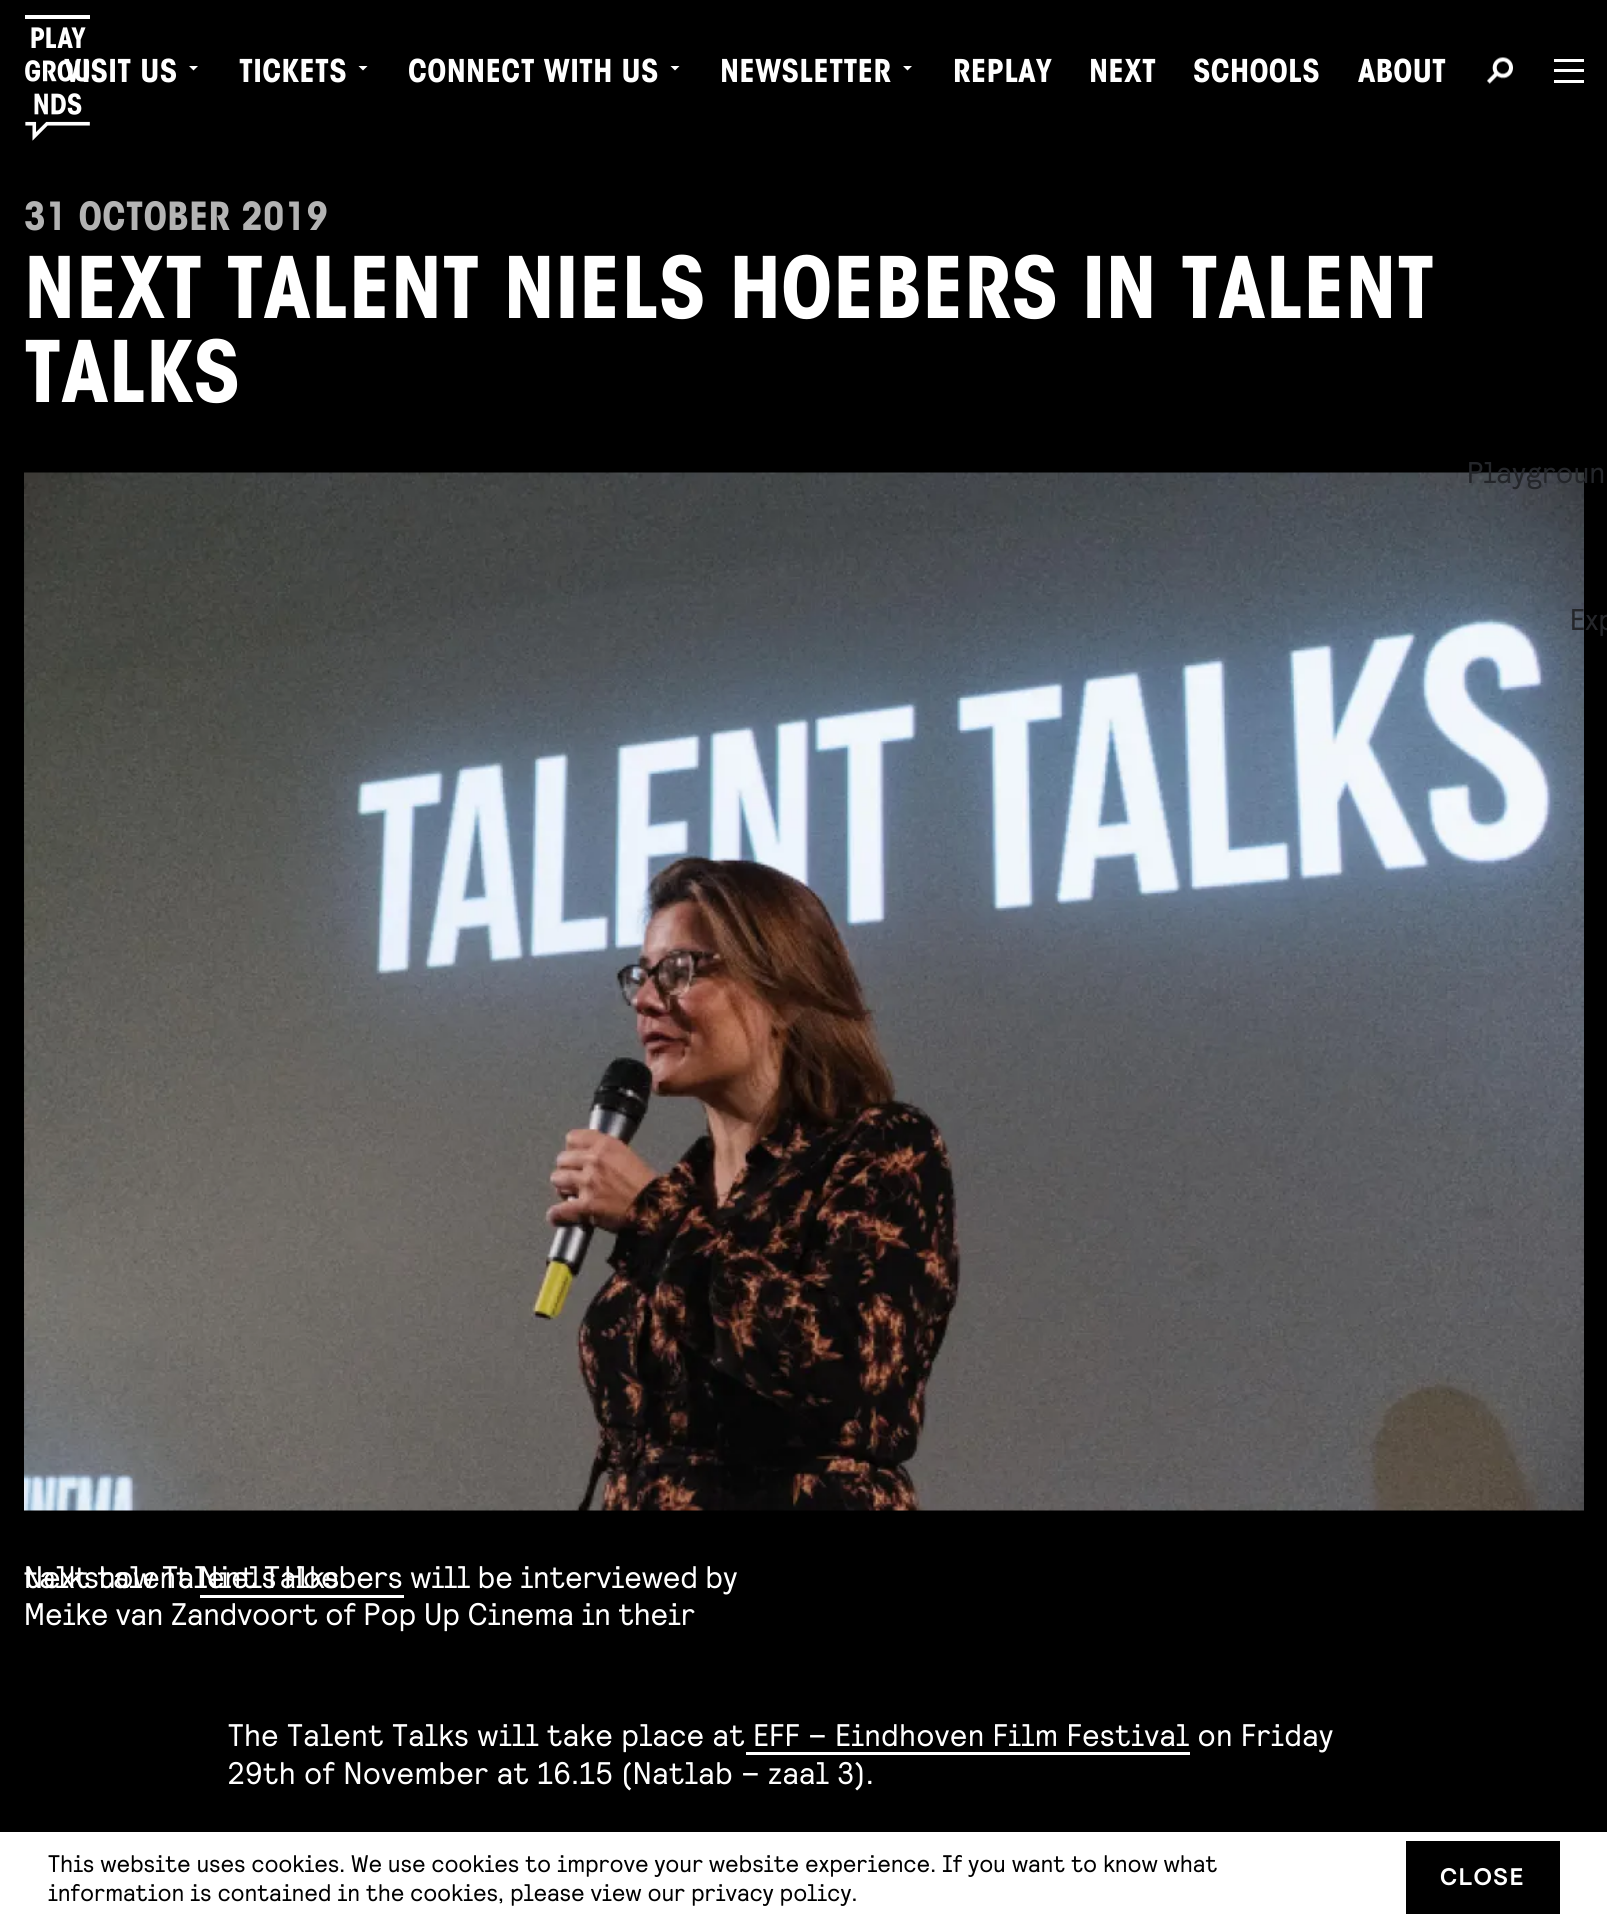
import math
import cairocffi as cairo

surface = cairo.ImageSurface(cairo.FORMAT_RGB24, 1607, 1923)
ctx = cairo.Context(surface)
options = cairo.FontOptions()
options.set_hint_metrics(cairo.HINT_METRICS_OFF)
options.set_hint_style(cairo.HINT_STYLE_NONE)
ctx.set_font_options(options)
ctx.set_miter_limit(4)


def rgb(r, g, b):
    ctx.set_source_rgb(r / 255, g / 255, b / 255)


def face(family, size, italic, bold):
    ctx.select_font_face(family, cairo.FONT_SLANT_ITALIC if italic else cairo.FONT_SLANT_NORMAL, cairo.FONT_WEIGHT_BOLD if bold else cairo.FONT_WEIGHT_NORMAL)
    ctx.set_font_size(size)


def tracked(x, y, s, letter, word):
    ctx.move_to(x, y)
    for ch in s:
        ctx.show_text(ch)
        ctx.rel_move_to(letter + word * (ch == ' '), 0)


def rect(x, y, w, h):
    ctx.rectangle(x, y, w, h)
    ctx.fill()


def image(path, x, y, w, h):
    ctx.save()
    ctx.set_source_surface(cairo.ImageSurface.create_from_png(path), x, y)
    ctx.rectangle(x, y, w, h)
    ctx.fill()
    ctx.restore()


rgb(0, 0, 0)
ctx.paint()
image('image0.png', 25, 15, 65, 126)
face('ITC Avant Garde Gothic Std', 31.2, 0, 1)
rgb(255, 255, 255)
tracked(64, 82, 'VISIT US', 0.3, 0)
ctx.new_path()
ctx.move_to(189, 66)
ctx.line_to(198, 66)
ctx.line_to(193.5, 70.5)
ctx.close_path()
ctx.fill()
tracked(239, 82, 'TICKETS', 0.3, 0)
ctx.new_path()
ctx.move_to(358.5, 66)
ctx.line_to(367.5, 66)
ctx.line_to(363, 70.5)
ctx.close_path()
ctx.fill()
tracked(408, 82, 'CONNECT WITH US', 0.3, 0)
ctx.new_path()
ctx.move_to(670.5, 66)
ctx.line_to(679.5, 66)
ctx.line_to(675, 70.5)
ctx.close_path()
ctx.fill()
tracked(720, 82, 'NEWSLETTER', 0.3, 0)
ctx.new_path()
ctx.move_to(903, 66)
ctx.line_to(912, 66)
ctx.line_to(907.5, 70.5)
ctx.close_path()
ctx.fill()
tracked(953, 82, 'REPLAY', 0.3, 0)
tracked(1089, 82, 'NEXT', 0.3, 0)
tracked(1193, 82, 'SCHOOLS', 0.3, 0)
tracked(1358, 82, 'ABOUT', 0.3, 0)
image('image1.png', 1487, 57, 26, 27)
rect(1554, 69, 30, 3)
rect(1554, 59, 30, 3)
rect(1554, 80, 30, 3)
face('ITC Avant Garde Gothic Std', 38.5, 0, 1)
rgb(179, 179, 179)
tracked(24, 230, '31 OCTOBER 2019', 0.3, 0)
face('ITC Avant Garde Gothic Std', 84, 0, 1)
rgb(255, 255, 255)
tracked(24, 318, 'NEXT TALENT NIELS HOEBERS IN TALENT', 0.3, 0)
tracked(24, 402, 'TALKS', 0.3, 0)
image('image2.png', 24, 472, 1560, 1039)
face('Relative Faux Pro', 31.2, 0, 0)
tracked(24, 1588, 'Next talent Niels Hoebers will be interviewed by', 0.3, 0)
tracked(24, 1588, 'talkshow Talent Talks.', 0.3, 0)
rect(200, 1595, 204, 3)
tracked(24, 1625, 'Meike van Zandvoort of Pop Up Cinema in their', 0.3, 0)
tracked(228, 1746, 'The Talent Talks will take place at EFF – Eindhoven Film Festival on Friday', 0.72, 0)
rect(746, 1752, 444, 3)
tracked(228, 1784, '29th of November at 16.15 (Natlab – zaal 3).', 0.72, 0)
face('Relative Faux Pro', 30, 0, 0)
rgb(36, 38, 42)
tracked(1467, 483, 'Playgroun', 0.5, 0)
tracked(1570, 630, 'Exp', 0.5, 0)
rgb(255, 255, 255)
rect(0, 1832, 1607, 91)
face('Relative Faux Pro', 24, 0, 0)
rgb(0, 0, 0)
tracked(48, 1872, 'This website uses cookies. We use cookies to improve your website experience. If you want to know what', 0.3, 0)
tracked(48, 1901, 'information is contained in the cookies, please view our privacy policy.', 0.3, 0)
rect(1406, 1841, 154, 73)
face('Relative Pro', 24, 0, 1)
rgb(255, 255, 255)
tracked(1440, 1885, 'CLOSE', 1.5, 0)
surface.write_to_png('render.png')
